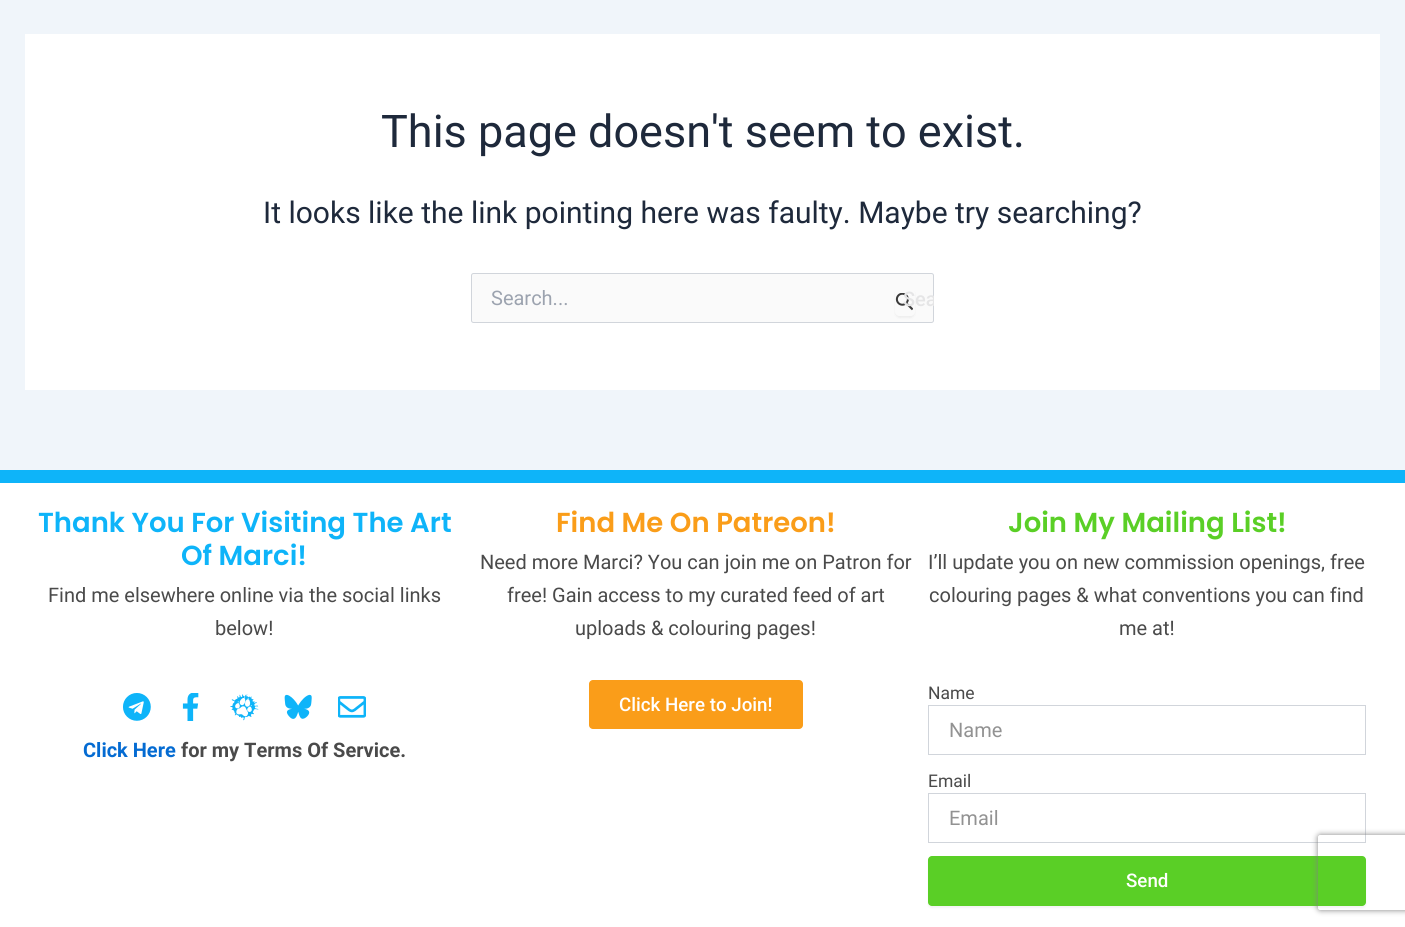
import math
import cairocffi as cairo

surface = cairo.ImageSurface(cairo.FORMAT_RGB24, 1405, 927)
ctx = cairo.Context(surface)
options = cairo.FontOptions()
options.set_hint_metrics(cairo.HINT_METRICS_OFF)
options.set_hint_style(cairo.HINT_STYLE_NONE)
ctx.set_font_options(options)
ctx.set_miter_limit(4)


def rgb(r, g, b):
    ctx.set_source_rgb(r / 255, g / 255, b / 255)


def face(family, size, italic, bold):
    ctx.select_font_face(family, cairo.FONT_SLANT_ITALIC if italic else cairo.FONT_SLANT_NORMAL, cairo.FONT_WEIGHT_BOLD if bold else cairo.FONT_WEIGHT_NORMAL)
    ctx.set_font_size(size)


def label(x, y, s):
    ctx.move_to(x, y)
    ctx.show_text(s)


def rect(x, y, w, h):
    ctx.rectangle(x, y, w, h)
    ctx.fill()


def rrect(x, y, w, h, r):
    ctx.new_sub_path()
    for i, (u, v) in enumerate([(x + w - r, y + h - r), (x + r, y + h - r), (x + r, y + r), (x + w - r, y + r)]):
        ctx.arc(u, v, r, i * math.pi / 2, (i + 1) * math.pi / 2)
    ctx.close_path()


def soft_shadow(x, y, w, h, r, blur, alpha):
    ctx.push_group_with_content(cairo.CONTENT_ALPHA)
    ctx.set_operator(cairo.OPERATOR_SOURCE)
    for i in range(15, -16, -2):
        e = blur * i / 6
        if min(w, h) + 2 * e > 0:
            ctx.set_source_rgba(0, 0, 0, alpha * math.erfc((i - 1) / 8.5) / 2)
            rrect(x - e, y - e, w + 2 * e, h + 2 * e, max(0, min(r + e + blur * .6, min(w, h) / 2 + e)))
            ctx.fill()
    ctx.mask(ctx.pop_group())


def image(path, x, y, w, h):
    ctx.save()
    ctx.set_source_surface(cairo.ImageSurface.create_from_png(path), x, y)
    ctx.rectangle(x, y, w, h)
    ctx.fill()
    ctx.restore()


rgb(240, 245, 250)
ctx.paint()
rgb(255, 255, 255)
rect(25, 34, 1355, 356)
face('Roboto', 45, 0, 0)
rgb(30, 41, 59)
label(381, 147, 'This page doesn\'t seem to exist.')
face('Roboto', 30, 0, 0)
label(263, 223, 'It looks like the link pointing here was faulty. Maybe try searching?')
rgb(250, 250, 250)
rrect(471.5, 273.5, 462, 49, 2)
ctx.fill_preserve()
rgb(209, 213, 219)
ctx.set_line_width(1)
ctx.stroke()
face('Roboto', 20, 0, 0)
rgb(156, 163, 175)
label(491, 305, 'Search...')
ctx.save()
ctx.set_fill_rule(cairo.FILL_RULE_EVEN_ODD)
ctx.new_path()
ctx.move_to(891, 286)
ctx.line_to(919, 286)
ctx.line_to(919, 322)
ctx.line_to(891, 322)
ctx.close_path()
ctx.move_to(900, 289)
ctx.line_to(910, 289)
ctx.curve_to(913, 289, 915, 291, 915, 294)
ctx.line_to(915, 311)
ctx.curve_to(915, 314, 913, 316, 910, 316)
ctx.line_to(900, 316)
ctx.curve_to(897, 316, 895, 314, 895, 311)
ctx.line_to(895, 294)
ctx.curve_to(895, 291, 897, 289, 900, 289)
ctx.close_path()
ctx.clip()
rgb(0, 0, 0)
soft_shadow(895, 290, 20, 28, 5, 1, 0.05)
ctx.restore()
image('image0.png', 895, 293, 18, 18)
ctx.save()
rrect(878, 273, 56, 52, 2.5)
ctx.clip()
face('Roboto Medium', 20, 0, 0)
rgb(229, 229, 230)
label(903, 306, 'Sea')
ctx.restore()
rgb(255, 255, 255)
rect(0, 483, 1405, 444)
rgb(14, 180, 249)
rect(0, 470, 1405, 13)
face('Poppins SemiBold', 27.5, 0, 0)
label(38, 532, 'Thank You For Visiting The Art')
label(181, 565, 'Of Marci!')
face('Roboto', 20, 0, 0)
rgb(74, 74, 74)
label(48, 602, 'Find me elsewhere online via the social links')
label(215, 635, 'below!')
image('image1.png', 123, 693, 28, 28)
image('image2.png', 182, 693, 17, 28)
image('image3.png', 230, 694, 29, 27)
image('image4.png', 284, 694, 28, 25)
image('image5.png', 338, 696, 28, 22)
face('Roboto', 20, 0, 1)
rgb(4, 107, 210)
label(83, 757, 'Click Here')
rgb(74, 74, 74)
label(181, 757, 'for my Terms Of Service.')
face('Poppins SemiBold', 27.5, 0, 0)
rgb(250, 157, 25)
label(556, 532, 'Find Me On Patreon!')
face('Roboto', 20, 0, 0)
rgb(74, 74, 74)
label(480, 569, 'Need more Marci? You can join me on Patron for')
label(507, 602, 'free! Gain access to my curated feed of art')
label(575, 635, 'uploads & colouring pages!')
rgb(250, 157, 25)
rrect(589, 680, 214, 49, 4)
ctx.fill()
face('Roboto Medium', 18.75, 0, 0)
rgb(255, 255, 255)
label(619, 711, 'Click Here to Join!')
face('Poppins SemiBold', 27.5, 0, 0)
rgb(90, 207, 38)
label(1008, 532, 'Join My Mailing List!')
face('Roboto', 20, 0, 0)
rgb(74, 74, 74)
label(928, 569, 'I’ll update you on new commission openings, free')
label(929, 602, 'colouring pages & what conventions you can find')
label(1119, 635, 'me at!')
face('Roboto', 17.5, 0, 0)
label(928, 699, 'Name')
ctx.rectangle(928.5, 705.5, 437, 49)
rgb(209, 213, 219)
ctx.stroke()
face('Roboto', 20, 0, 0)
rgb(146, 146, 146)
label(949, 737, 'Name')
face('Roboto', 17.5, 0, 0)
rgb(74, 74, 74)
label(928, 787, 'Email')
ctx.rectangle(928.5, 793.5, 437, 49)
rgb(209, 213, 219)
ctx.stroke()
face('Roboto', 20, 0, 0)
rgb(146, 146, 146)
label(949, 825, 'Email')
rgb(0, 0, 0)
soft_shadow(928, 858, 438, 50, 4, 1, 0.05)
rgb(90, 207, 38)
rrect(928, 856, 438, 50, 4)
ctx.fill()
face('Roboto Medium', 18.75, 0, 0)
rgb(255, 255, 255)
label(1126, 887, 'Send')
ctx.save()
ctx.set_fill_rule(cairo.FILL_RULE_EVEN_ODD)
ctx.new_path()
ctx.move_to(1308, 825)
ctx.line_to(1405, 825)
ctx.line_to(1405, 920)
ctx.line_to(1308, 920)
ctx.close_path()
ctx.move_to(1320.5, 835)
ctx.line_to(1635.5, 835)
ctx.curve_to(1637, 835, 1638, 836, 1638, 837.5)
ctx.line_to(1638, 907.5)
ctx.curve_to(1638, 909, 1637, 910, 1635.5, 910)
ctx.line_to(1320.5, 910)
ctx.curve_to(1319, 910, 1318, 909, 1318, 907.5)
ctx.line_to(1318, 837.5)
ctx.curve_to(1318, 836, 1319, 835, 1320.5, 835)
ctx.close_path()
ctx.clip()
rgb(128, 128, 128)
soft_shadow(1318, 835, 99, 75, 2.5, 3, 1)
ctx.restore()
surface.write_to_png('render.png')
